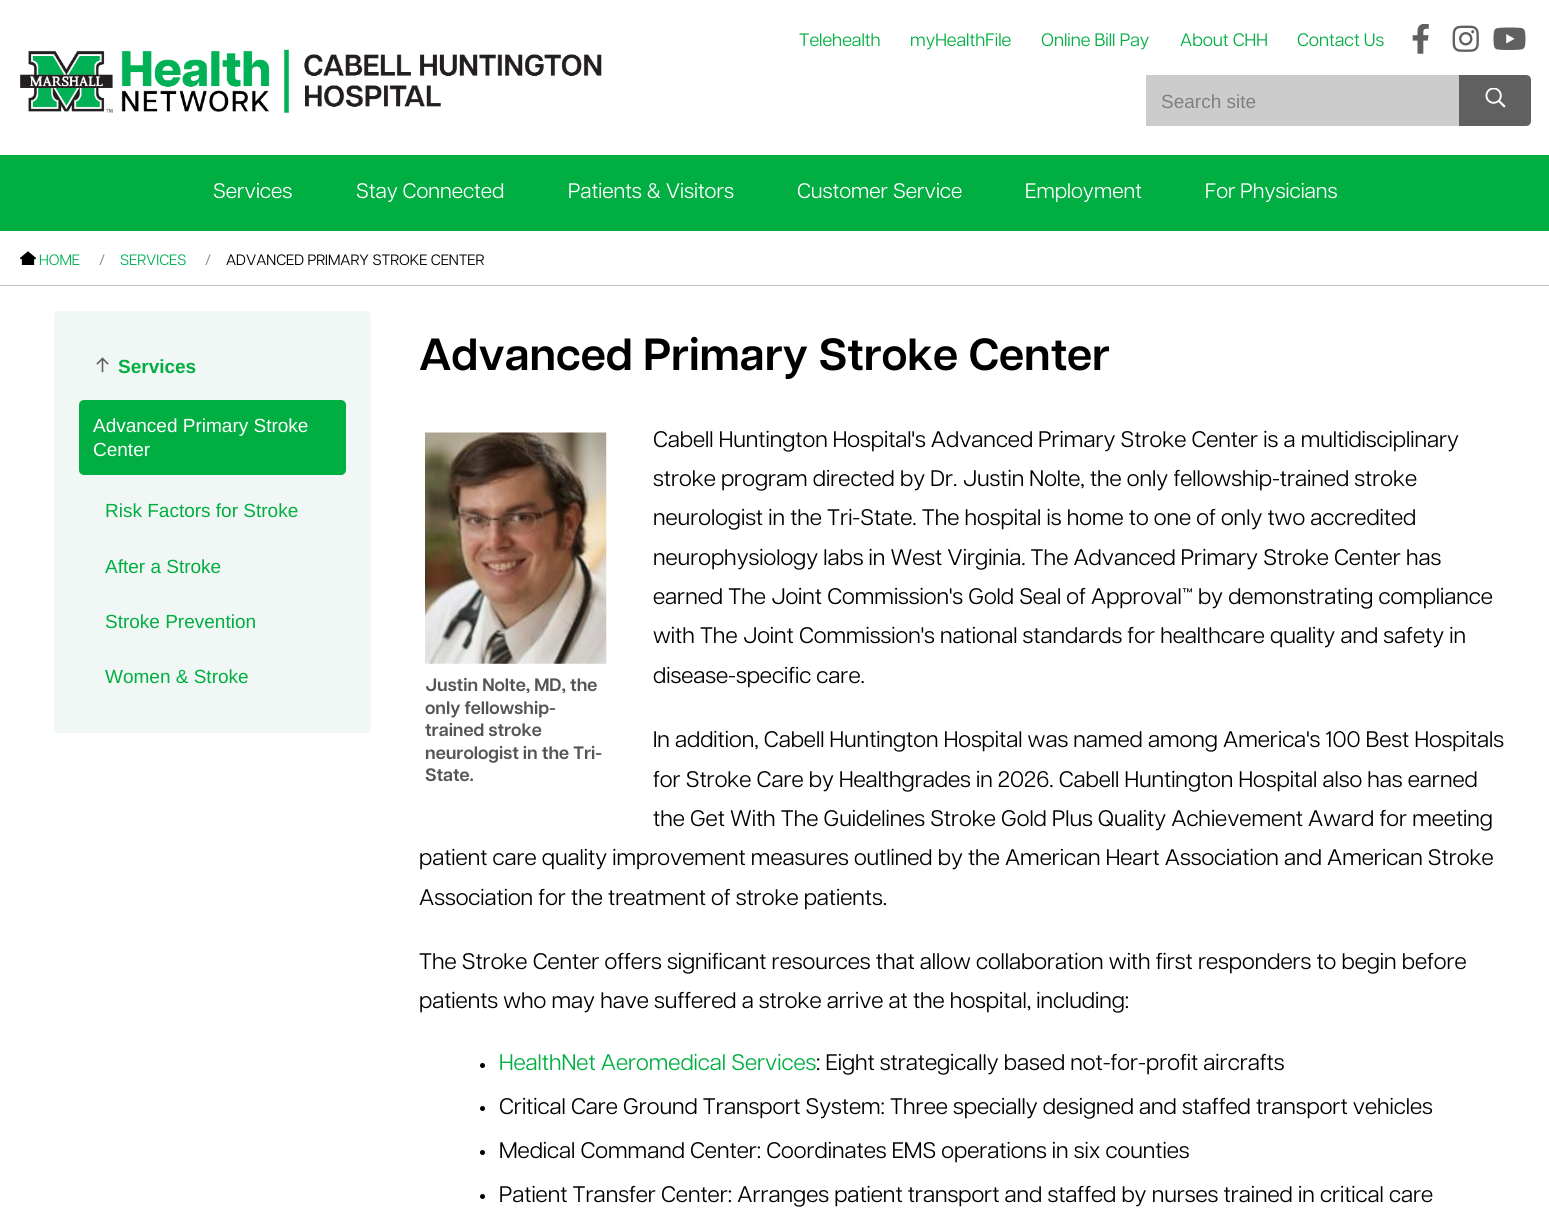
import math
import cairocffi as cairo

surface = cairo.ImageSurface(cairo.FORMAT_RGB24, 1549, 1220)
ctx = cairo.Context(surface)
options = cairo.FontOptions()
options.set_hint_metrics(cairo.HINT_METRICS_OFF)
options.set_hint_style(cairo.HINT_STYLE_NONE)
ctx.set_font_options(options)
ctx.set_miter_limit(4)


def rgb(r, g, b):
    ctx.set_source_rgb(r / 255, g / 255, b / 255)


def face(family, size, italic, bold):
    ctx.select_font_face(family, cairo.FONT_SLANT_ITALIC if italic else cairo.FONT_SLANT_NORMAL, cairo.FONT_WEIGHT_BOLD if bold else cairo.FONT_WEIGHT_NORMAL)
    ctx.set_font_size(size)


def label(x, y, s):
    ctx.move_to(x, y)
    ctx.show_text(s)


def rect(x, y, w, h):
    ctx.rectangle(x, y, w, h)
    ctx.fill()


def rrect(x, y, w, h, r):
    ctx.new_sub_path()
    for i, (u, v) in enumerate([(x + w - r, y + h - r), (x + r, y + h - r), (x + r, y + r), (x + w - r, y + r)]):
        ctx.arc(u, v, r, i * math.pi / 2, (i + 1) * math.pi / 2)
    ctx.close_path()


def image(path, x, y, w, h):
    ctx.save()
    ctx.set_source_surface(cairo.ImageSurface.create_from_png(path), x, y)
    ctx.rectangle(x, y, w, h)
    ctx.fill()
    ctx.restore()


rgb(255, 255, 255)
ctx.paint()
image('image0.png', 20, 49, 582, 65)
face('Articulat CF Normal', 18, 0, 0)
rgb(0, 174, 65)
label(799, 46, 'Telehealth')
label(910, 46, 'myHealthFile')
label(1041, 46, 'Online Bill Pay')
label(1180, 46, 'About CHH')
label(1297, 46, 'Contact Us')
image('image1.png', 1412, 24, 17, 30)
image('image2.png', 1452, 25, 27, 27)
image('image3.png', 1493, 27, 33, 23)
rgb(204, 204, 204)
rect(1146, 75, 313, 51)
face('Liberation Sans', 19, 0, 0)
rgb(128, 128, 128)
label(1161, 108, 'Search site')
rgb(96, 96, 96)
ctx.new_path()
ctx.move_to(1459, 75)
ctx.line_to(1526, 75)
ctx.curve_to(1529, 75, 1531, 77, 1531, 80)
ctx.line_to(1531, 121)
ctx.curve_to(1531, 124, 1529, 126, 1526, 126)
ctx.line_to(1459, 126)
ctx.close_path()
ctx.fill()
image('image4.png', 1485, 88, 21, 20)
rgb(0, 174, 65)
rect(0, 155, 1549, 76)
face('Articulat CF Normal', 21, 0, 0)
rgb(255, 255, 255)
label(213, 198, 'Services')
label(356, 198, 'Stay Connected')
label(568, 198, 'Patients & Visitors')
label(797, 198, 'Customer Service')
label(1025, 198, 'Employment')
label(1205, 198, 'For Physicians')
rgb(192, 192, 192)
rect(0, 285, 1549, 1)
image('image5.png', 20, 251, 16, 14)
face('Articulat CF Normal', 15, 0, 0)
rgb(1, 178, 86)
label(39, 265, 'HOME')
rgb(128, 128, 128)
label(99, 265, '/')
rgb(1, 178, 86)
label(120, 265, 'SERVICES')
rgb(128, 128, 128)
label(205, 265, '/')
rgb(0, 0, 0)
label(226, 265, 'ADVANCED PRIMARY STROKE CENTER')
rgb(241, 247, 244)
rrect(54, 311, 317, 422, 5)
ctx.fill()
image('image6.png', 96, 357, 13, 16)
face('Liberation Sans', 19, 0, 1)
rgb(0, 174, 65)
label(118, 373, 'Services')
rrect(79, 400, 267, 75, 5)
ctx.fill()
face('Liberation Sans', 19, 0, 0)
rgb(255, 255, 255)
label(93, 432, 'Advanced Primary Stroke')
label(93, 456, 'Center')
rgb(0, 174, 65)
label(105, 517, 'Risk Factors for Stroke')
label(105, 573, 'After a Stroke')
label(105, 628, 'Stroke Prevention')
label(105, 683, 'Women & Stroke')
face('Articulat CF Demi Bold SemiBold', 45, 0, 0)
rgb(0, 0, 0)
label(419, 370, 'Advanced Primary Stroke Center')
face('Articulat CF Normal', 22.5, 0, 0)
label(653, 447, 'Cabell Huntington Hospital\'s Advanced Primary Stroke Center is a multidisciplinary')
label(653, 486, 'stroke program directed by Dr. Justin Nolte, the only fellowship-trained stroke')
label(653, 525, 'neurologist in the Tri-State. The hospital is home to one of only two accredited')
label(653, 565, 'neurophysiology labs in West Virginia. The Advanced Primary Stroke Center has')
label(653, 604, 'earned The Joint Commission\'s Gold Seal of Approval™ by demonstrating compliance')
label(653, 643, 'with The Joint Commission\'s national standards for healthcare quality and safety in')
label(653, 683, 'disease-specific care.')
image('image7.png', 425, 432, 182, 232)
face('Articulat CF Demi Bold SemiBold', 18, 0, 0)
rgb(85, 85, 85)
label(425, 691, 'Justin Nolte, MD, the')
label(425, 714, 'only fellowship-')
label(425, 736, 'trained stroke')
label(425, 759, 'neurologist in the Tri-')
label(425, 781, 'State.')
face('Articulat CF Normal', 22.5, 0, 0)
rgb(0, 0, 0)
label(653, 747, 'In addition, Cabell Huntington Hospital was named among America\'s 100 Best Hospitals')
label(653, 787, 'for Stroke Care by Healthgrades in 2026. Cabell Huntington Hospital also has earned')
label(653, 826, 'the Get With The Guidelines Stroke Gold Plus Quality Achievement Award for meeting')
label(419, 865, 'patient care quality improvement measures outlined by the American Heart Association and American Stroke')
label(419, 905, 'Association for the treatment of stroke patients.')
label(419, 969, 'The Stroke Center offers significant resources that allow collaboration with first responders to begin before')
label(419, 1008, 'patients who may have suffered a stroke arrive at the hospital, including:')
ctx.new_path()
ctx.arc(482.5, 1065.5, 2.5, 0, 2 * math.pi)
ctx.fill()
rgb(0, 174, 65)
label(499, 1070, 'HealthNet Aeromedical Services')
rgb(0, 0, 0)
label(816, 1070, ': Eight strategically based not-for-profit aircrafts')
ctx.new_path()
ctx.arc(482.5, 1108.5, 2.5, 0, 2 * math.pi)
ctx.fill()
label(499, 1114, 'Critical Care Ground Transport System: Three specially designed and staffed transport vehicles')
ctx.new_path()
ctx.arc(482.5, 1152.5, 2.5, 0, 2 * math.pi)
ctx.fill()
label(499, 1158, 'Medical Command Center: Coordinates EMS operations in six counties')
ctx.new_path()
ctx.arc(482.5, 1196.5, 2.5, 0, 2 * math.pi)
ctx.fill()
label(499, 1202, 'Patient Transfer Center: Arranges patient transport and staffed by nurses trained in critical care')
surface.write_to_png('render.png')
